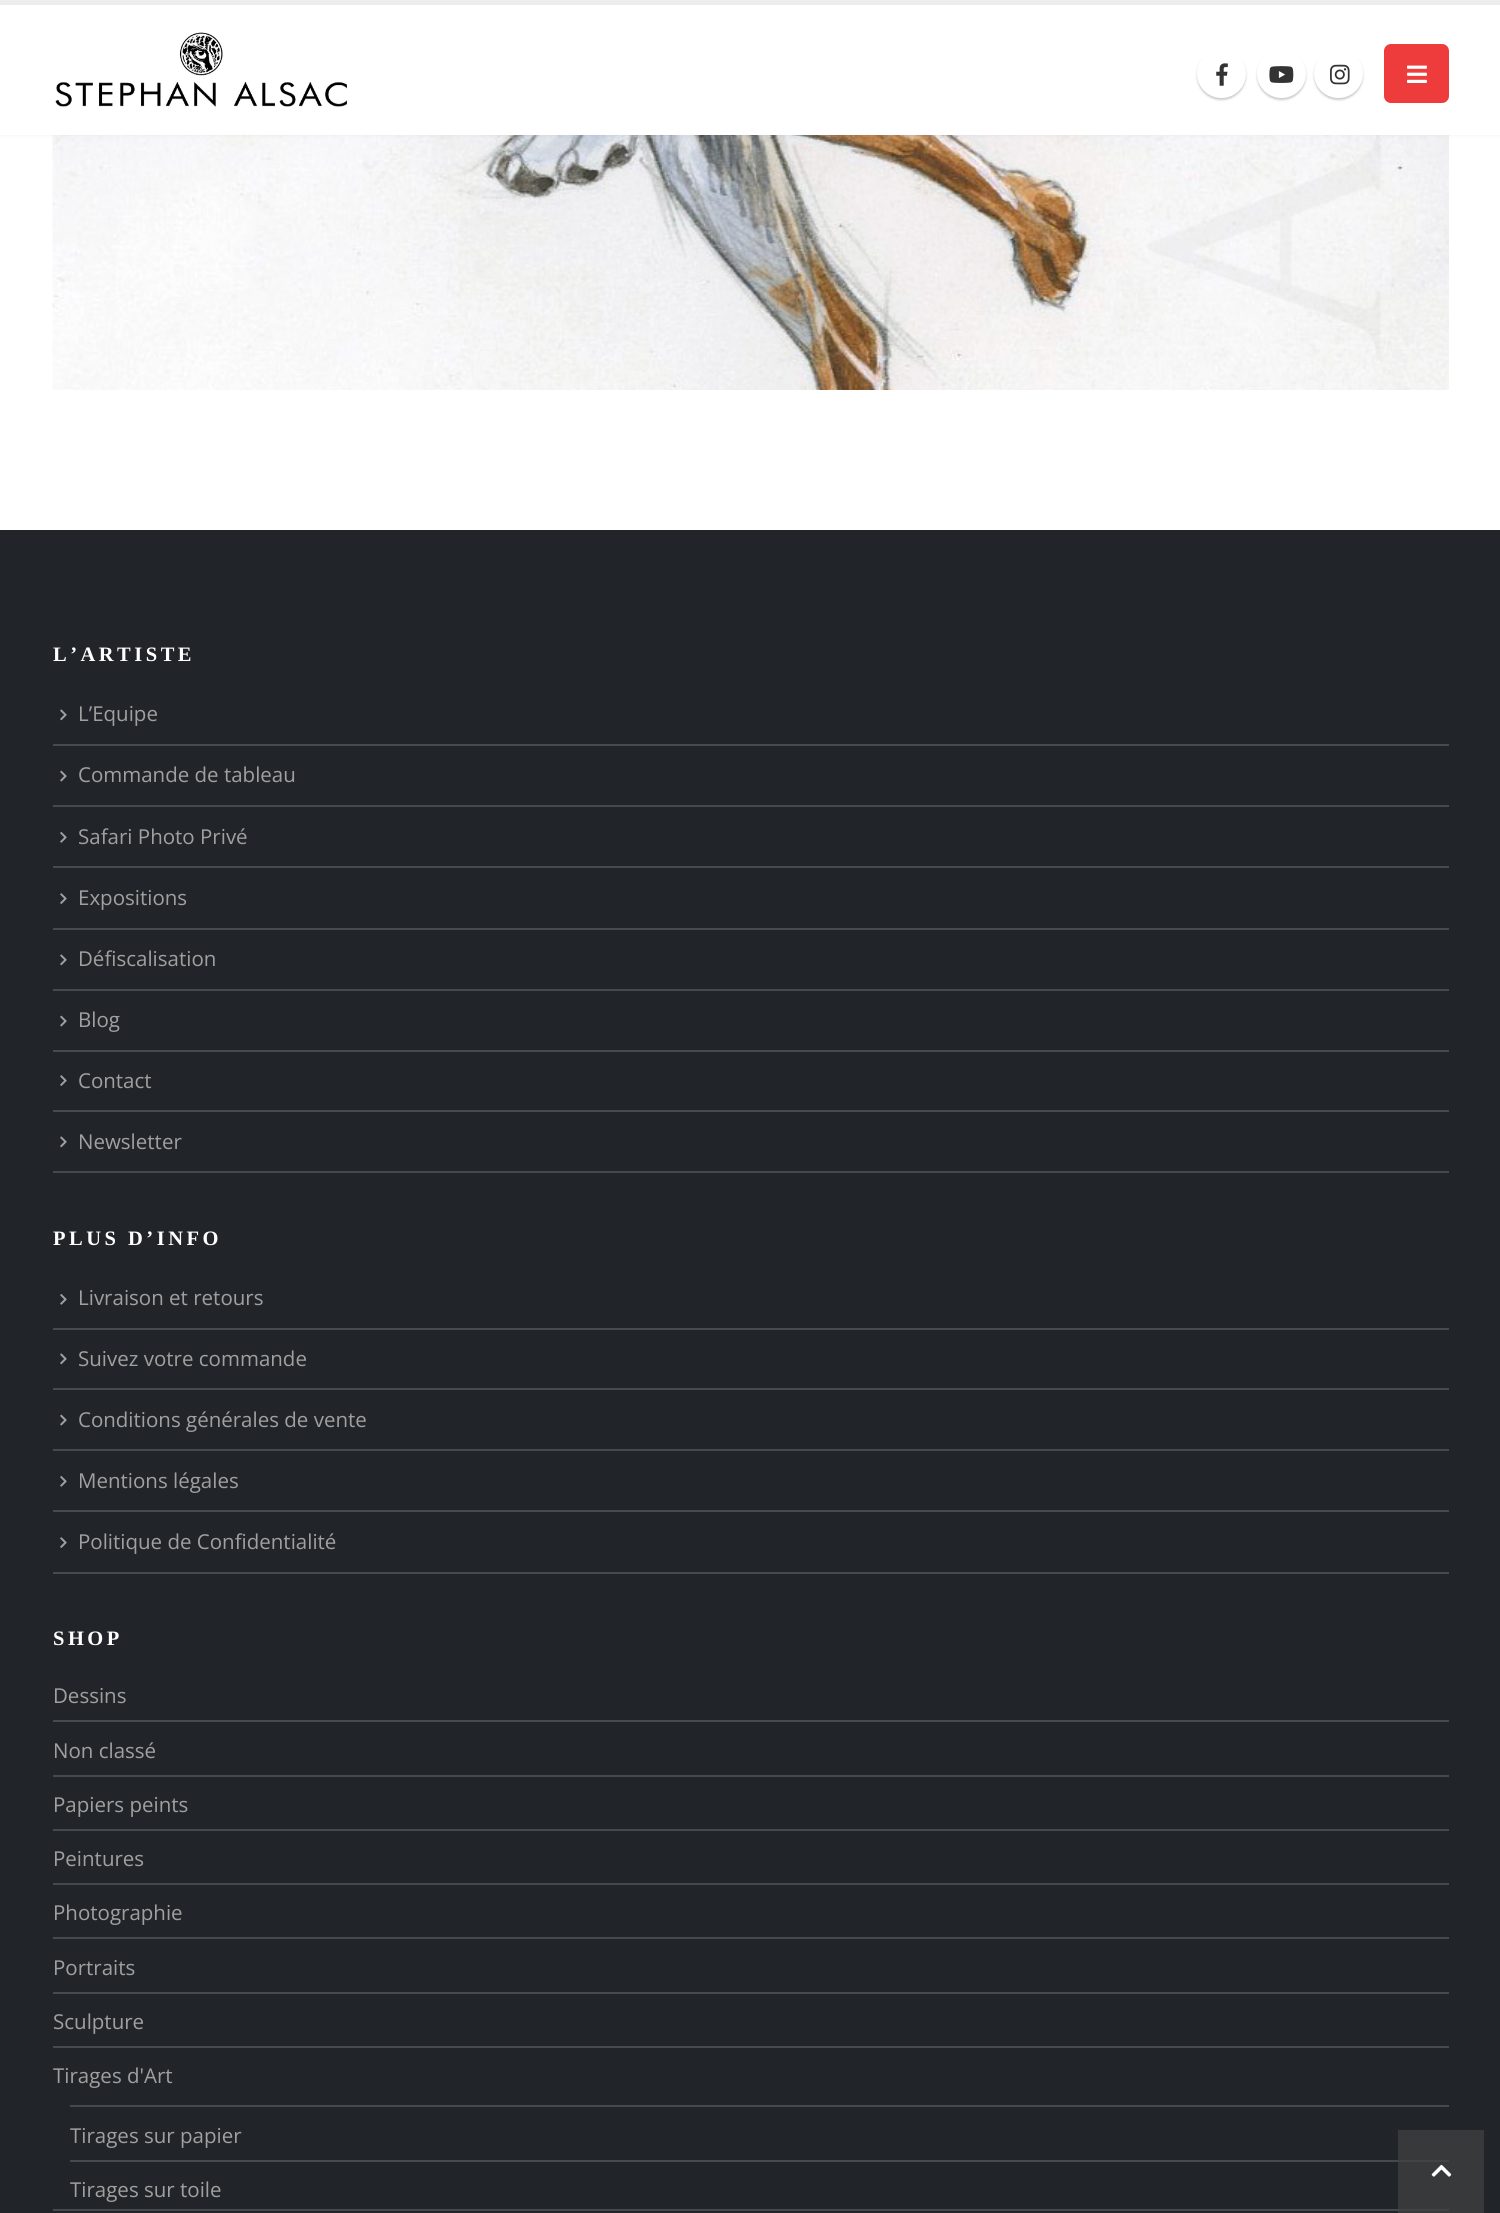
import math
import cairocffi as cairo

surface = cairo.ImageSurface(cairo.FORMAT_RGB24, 1500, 2213)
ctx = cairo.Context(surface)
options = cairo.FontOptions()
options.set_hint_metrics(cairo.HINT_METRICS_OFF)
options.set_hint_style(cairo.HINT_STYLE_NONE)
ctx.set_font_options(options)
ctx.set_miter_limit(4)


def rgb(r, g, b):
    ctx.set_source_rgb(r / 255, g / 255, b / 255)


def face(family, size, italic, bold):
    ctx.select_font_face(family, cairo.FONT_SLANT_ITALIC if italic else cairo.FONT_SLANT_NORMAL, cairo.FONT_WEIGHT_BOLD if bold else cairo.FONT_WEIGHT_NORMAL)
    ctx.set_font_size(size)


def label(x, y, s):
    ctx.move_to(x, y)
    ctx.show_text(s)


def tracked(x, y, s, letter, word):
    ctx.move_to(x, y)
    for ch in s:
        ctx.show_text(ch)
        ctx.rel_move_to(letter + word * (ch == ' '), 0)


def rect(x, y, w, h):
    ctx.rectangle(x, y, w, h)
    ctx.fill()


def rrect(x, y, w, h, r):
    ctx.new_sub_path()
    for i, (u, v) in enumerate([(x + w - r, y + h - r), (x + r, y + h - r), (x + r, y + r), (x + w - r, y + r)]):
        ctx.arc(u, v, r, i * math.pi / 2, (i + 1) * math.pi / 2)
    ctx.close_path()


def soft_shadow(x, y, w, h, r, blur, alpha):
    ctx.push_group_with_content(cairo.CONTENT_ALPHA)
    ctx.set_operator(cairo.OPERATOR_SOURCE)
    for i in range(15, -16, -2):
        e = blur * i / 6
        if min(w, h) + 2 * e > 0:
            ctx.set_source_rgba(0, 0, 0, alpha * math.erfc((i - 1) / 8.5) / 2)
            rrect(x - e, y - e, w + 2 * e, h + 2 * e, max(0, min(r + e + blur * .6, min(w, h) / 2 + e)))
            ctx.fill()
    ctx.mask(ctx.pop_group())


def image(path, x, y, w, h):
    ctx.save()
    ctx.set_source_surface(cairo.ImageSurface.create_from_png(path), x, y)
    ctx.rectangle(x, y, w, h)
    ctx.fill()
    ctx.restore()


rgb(255, 255, 255)
ctx.paint()
image('image5.png', 52, 135, 1397, 255)
rgb(0, 0, 0)
soft_shadow(0, 0, 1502, 135, 0, 2.5, 0.06)
rgb(255, 255, 255)
rect(0, 5, 1500, 130)
rgb(237, 237, 237)
rect(0, 0, 1500, 5)
image('image0.png', 55, 32, 292, 75)
rgb(0, 0, 0)
soft_shadow(1197, 51, 49, 49, 24.5, 1, 0.2)
rgb(255, 255, 255)
ctx.arc(1221.5, 73.5, 24.5, 0, 2 * math.pi)
ctx.fill()
image('image1.png', 1216, 63, 12, 23)
rgb(0, 0, 0)
soft_shadow(1257, 51, 49, 49, 24.5, 1, 0.2)
rgb(255, 255, 255)
ctx.arc(1281.5, 73.5, 24.5, 0, 2 * math.pi)
ctx.fill()
image('image2.png', 1269, 66, 25, 17)
rgb(0, 0, 0)
soft_shadow(1314, 51, 49, 49, 24.5, 1, 0.2)
rgb(255, 255, 255)
ctx.arc(1338.5, 73.5, 24.5, 0, 2 * math.pi)
ctx.fill()
image('image3.png', 1330, 64, 20, 21)
rgb(238, 59, 59)
rrect(1384, 44, 65, 59, 7)
ctx.fill()
image('image4.png', 1407, 65, 20, 18)
rgb(33, 37, 41)
rect(0, 530, 1500, 1683)
rgb(56, 57, 58)
rect(1398, 2130, 86, 83)
face('Liberation Serif', 20.5, 0, 1)
rgb(255, 255, 255)
tracked(53, 661, 'L’ARTISTE', 3.5, 0)
rgb(71, 74, 77)
rect(53, 1171, 1396, 2)
image('image6.png', 60, 709, 7, 12)
face('Open Sans', 20.5, 0, 0)
rgb(160, 160, 160)
label(78, 721, 'L’Equipe')
rgb(71, 74, 77)
rect(53, 744, 1396, 2)
image('image7.png', 60, 770, 7, 12)
rgb(160, 160, 160)
label(78, 782, 'Commande de tableau')
rgb(71, 74, 77)
rect(53, 805, 1396, 2)
image('image8.png', 60, 832, 7, 11)
rgb(160, 160, 160)
label(78, 844, 'Safari Photo Privé')
rgb(71, 74, 77)
rect(53, 866, 1396, 2)
image('image9.png', 60, 893, 7, 11)
rgb(160, 160, 160)
label(78, 905, 'Expositions')
rgb(71, 74, 77)
rect(53, 928, 1396, 2)
image('image6.png', 60, 954, 7, 12)
rgb(160, 160, 160)
label(78, 966, 'Défiscalisation')
rgb(71, 74, 77)
rect(53, 989, 1396, 2)
image('image7.png', 60, 1015, 7, 12)
rgb(160, 160, 160)
label(78, 1027, 'Blog')
rgb(71, 74, 77)
rect(53, 1050, 1396, 2)
image('image9.png', 60, 1075, 7, 11)
rgb(160, 160, 160)
label(78, 1088, 'Contact')
rgb(71, 74, 77)
rect(53, 1110, 1396, 2)
image('image6.png', 60, 1136, 7, 12)
rgb(160, 160, 160)
label(78, 1149, 'Newsletter')
face('Liberation Serif', 20.5, 0, 1)
rgb(255, 255, 255)
tracked(53, 1245, 'PLUS D’INFO', 3.5, 0)
rgb(71, 74, 77)
rect(53, 1572, 1396, 2)
image('image8.png', 60, 1294, 7, 11)
face('Open Sans', 20.5, 0, 0)
rgb(160, 160, 160)
label(78, 1305, 'Livraison et retours')
rgb(71, 74, 77)
rect(53, 1328, 1396, 2)
image('image6.png', 60, 1353, 7, 12)
rgb(160, 160, 160)
label(78, 1366, 'Suivez votre commande')
rgb(71, 74, 77)
rect(53, 1388, 1396, 2)
image('image7.png', 60, 1414, 7, 12)
rgb(160, 160, 160)
label(78, 1427, 'Conditions générales de vente')
rgb(71, 74, 77)
rect(53, 1449, 1396, 2)
image('image8.png', 60, 1476, 7, 11)
rgb(160, 160, 160)
label(78, 1488, 'Mentions légales')
rgb(71, 74, 77)
rect(53, 1510, 1396, 2)
image('image9.png', 60, 1537, 7, 11)
rgb(160, 160, 160)
label(78, 1549, 'Politique de Confidentialité')
face('Liberation Serif', 20.5, 0, 1)
rgb(255, 255, 255)
tracked(53, 1645, 'SHOP', 3.5, 0)
rgb(71, 74, 77)
rect(53, 2209, 1345, 2)
rgb(66, 67, 67)
rect(1398, 2209, 51, 2)
face('Open Sans', 20.5, 0, 0)
rgb(160, 160, 160)
label(53, 1703, 'Dessins')
rgb(71, 74, 77)
rect(53, 1720, 1396, 2)
rgb(160, 160, 160)
label(53, 1758, 'Non classé')
rgb(71, 74, 77)
rect(53, 1775, 1396, 2)
rgb(160, 160, 160)
label(53, 1812, 'Papiers peints')
rgb(71, 74, 77)
rect(53, 1829, 1396, 2)
rgb(160, 160, 160)
label(53, 1866, 'Peintures')
rgb(71, 74, 77)
rect(53, 1883, 1396, 2)
rgb(160, 160, 160)
label(53, 1920, 'Photographie')
rgb(71, 74, 77)
rect(53, 1937, 1396, 2)
rgb(160, 160, 160)
label(53, 1975, 'Portraits')
rgb(71, 74, 77)
rect(53, 1992, 1396, 2)
rgb(160, 160, 160)
label(53, 2029, 'Sculpture')
rgb(71, 74, 77)
rect(53, 2046, 1396, 2)
rgb(160, 160, 160)
label(53, 2083, 'Tirages d\'Art')
rgb(71, 74, 77)
rect(70, 2105, 1379, 2)
rgb(160, 160, 160)
label(70, 2143, 'Tirages sur papier')
rgb(71, 74, 77)
rect(70, 2160, 1328, 2)
rgb(66, 67, 67)
rect(1398, 2160, 51, 2)
rgb(160, 160, 160)
label(70, 2197, 'Tirages sur toile')
image('image10.png', 1431, 2164, 21, 13)
surface.write_to_png('render.png')
